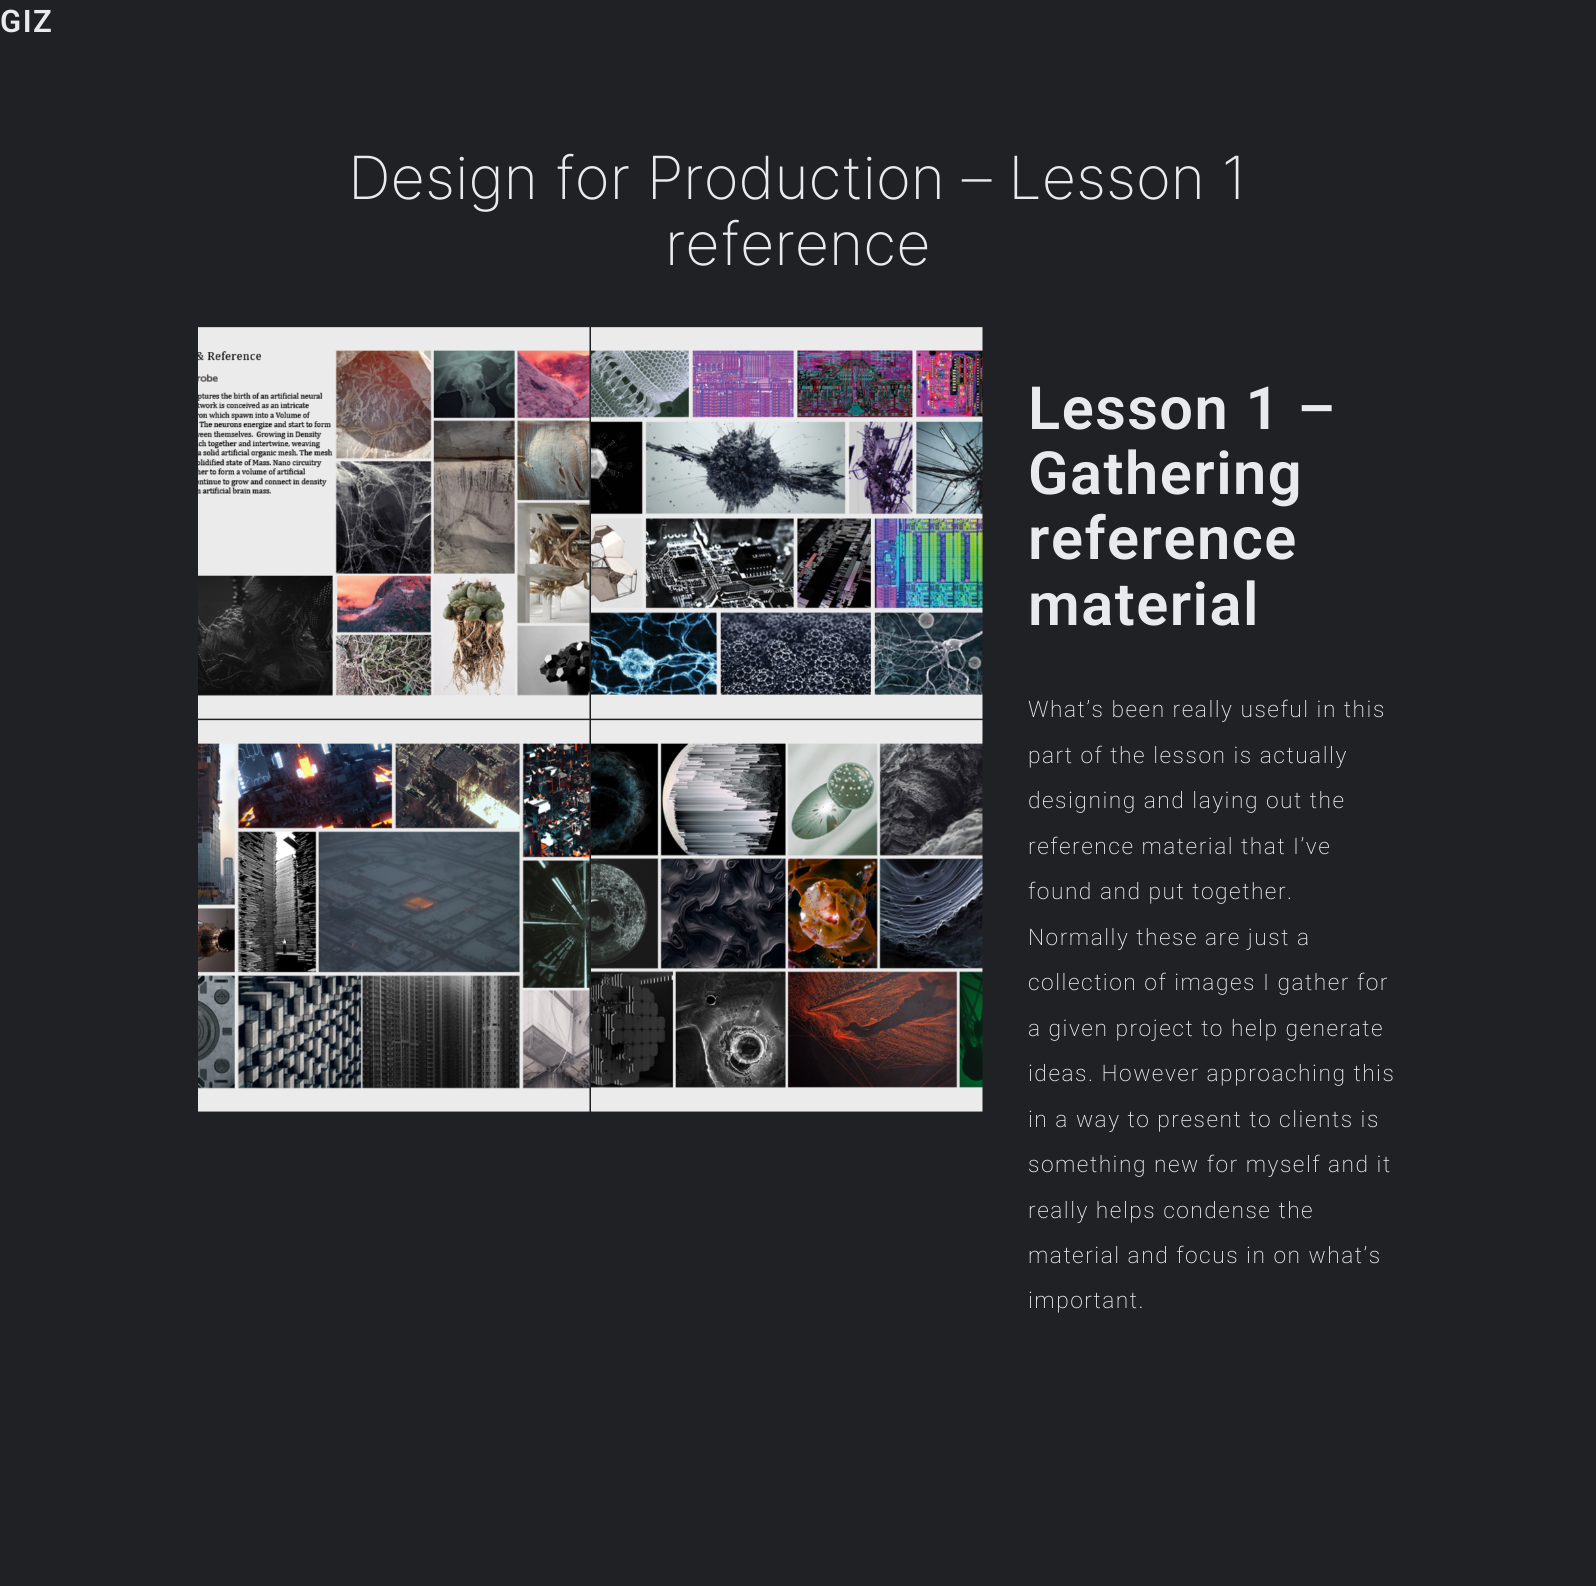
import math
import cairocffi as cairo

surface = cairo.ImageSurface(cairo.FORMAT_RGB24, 1596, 1586)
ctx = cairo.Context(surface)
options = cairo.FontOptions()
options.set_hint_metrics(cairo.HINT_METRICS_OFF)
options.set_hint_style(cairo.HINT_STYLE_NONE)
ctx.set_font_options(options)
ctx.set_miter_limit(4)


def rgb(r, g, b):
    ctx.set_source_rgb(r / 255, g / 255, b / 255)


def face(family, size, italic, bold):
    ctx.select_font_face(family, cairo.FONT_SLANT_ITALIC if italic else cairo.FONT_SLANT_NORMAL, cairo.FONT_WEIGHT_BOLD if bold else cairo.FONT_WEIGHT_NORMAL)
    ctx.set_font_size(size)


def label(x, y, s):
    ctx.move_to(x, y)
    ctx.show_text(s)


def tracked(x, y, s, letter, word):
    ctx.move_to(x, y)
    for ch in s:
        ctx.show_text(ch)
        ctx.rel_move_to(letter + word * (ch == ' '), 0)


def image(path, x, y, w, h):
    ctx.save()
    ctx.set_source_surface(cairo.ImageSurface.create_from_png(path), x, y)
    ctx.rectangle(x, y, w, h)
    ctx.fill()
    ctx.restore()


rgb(32, 33, 36)
ctx.paint()
face('Roboto SemiBold', 31, 0, 0)
rgb(232, 234, 237)
tracked(0, 32, 'GIZ', 1.5, 0)
face('Inter ExtraLight', 59.5, 0, 0)
label(348, 199, 'Design for Production – Lesson 1')
label(665, 265, 'reference')
image('image0.png', 198, 327, 392, 392)
image('image1.png', 591, 327, 392, 392)
image('image2.png', 198, 720, 392, 392)
image('image3.png', 591, 720, 392, 392)
face('Roboto SemiBold', 59.5, 0, 0)
tracked(1028, 429, 'Lesson 1 –', 1.5, 0)
tracked(1028, 494, 'Gathering', 1.5, 0)
tracked(1028, 559, 'reference', 1.5, 0)
tracked(1028, 625, 'material', 1.5, 0)
face('Roboto ExtraLight', 22.75, 0, 0)
tracked(1028, 717, 'What’s been really useful in this', 1.5, 0)
tracked(1028, 763, 'part of the lesson is actually', 1.5, 0)
tracked(1028, 808, 'designing and laying out the', 1.5, 0)
tracked(1028, 854, 'reference material that I’ve', 1.5, 0)
tracked(1028, 899, 'found and put together.', 1.5, 0)
tracked(1028, 945, 'Normally these are just a', 1.5, 0)
tracked(1028, 990, 'collection of images I gather for', 1.5, 0)
tracked(1028, 1036, 'a given project to help generate', 1.5, 0)
tracked(1028, 1081, 'ideas. However approaching this', 1.5, 0)
tracked(1028, 1127, 'in a way to present to clients is', 1.5, 0)
tracked(1028, 1172, 'something new for myself and it', 1.5, 0)
tracked(1028, 1218, 'really helps condense the', 1.5, 0)
tracked(1028, 1263, 'material and focus in on what’s', 1.5, 0)
tracked(1028, 1308, 'important.', 1.5, 0)
surface.write_to_png('render.png')
